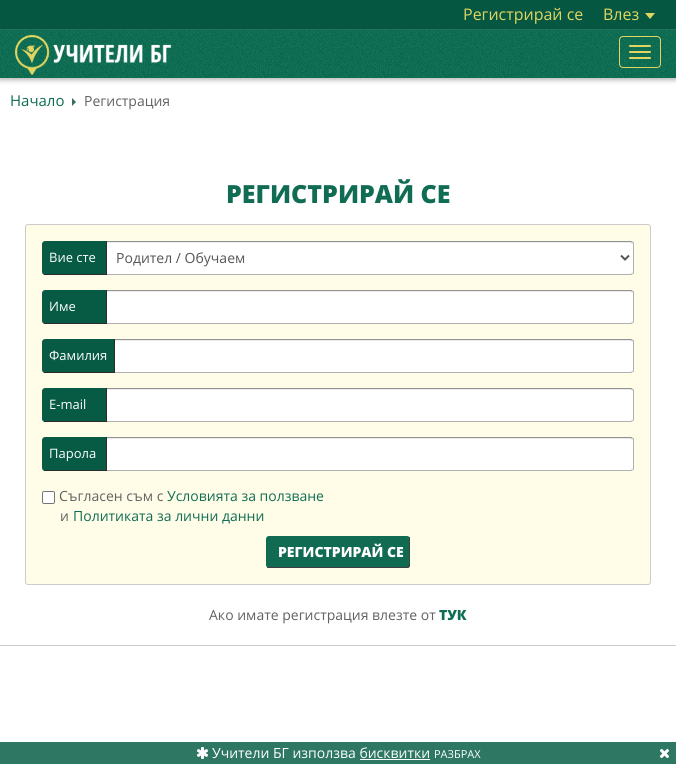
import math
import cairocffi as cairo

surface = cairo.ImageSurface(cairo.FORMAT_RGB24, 676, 764)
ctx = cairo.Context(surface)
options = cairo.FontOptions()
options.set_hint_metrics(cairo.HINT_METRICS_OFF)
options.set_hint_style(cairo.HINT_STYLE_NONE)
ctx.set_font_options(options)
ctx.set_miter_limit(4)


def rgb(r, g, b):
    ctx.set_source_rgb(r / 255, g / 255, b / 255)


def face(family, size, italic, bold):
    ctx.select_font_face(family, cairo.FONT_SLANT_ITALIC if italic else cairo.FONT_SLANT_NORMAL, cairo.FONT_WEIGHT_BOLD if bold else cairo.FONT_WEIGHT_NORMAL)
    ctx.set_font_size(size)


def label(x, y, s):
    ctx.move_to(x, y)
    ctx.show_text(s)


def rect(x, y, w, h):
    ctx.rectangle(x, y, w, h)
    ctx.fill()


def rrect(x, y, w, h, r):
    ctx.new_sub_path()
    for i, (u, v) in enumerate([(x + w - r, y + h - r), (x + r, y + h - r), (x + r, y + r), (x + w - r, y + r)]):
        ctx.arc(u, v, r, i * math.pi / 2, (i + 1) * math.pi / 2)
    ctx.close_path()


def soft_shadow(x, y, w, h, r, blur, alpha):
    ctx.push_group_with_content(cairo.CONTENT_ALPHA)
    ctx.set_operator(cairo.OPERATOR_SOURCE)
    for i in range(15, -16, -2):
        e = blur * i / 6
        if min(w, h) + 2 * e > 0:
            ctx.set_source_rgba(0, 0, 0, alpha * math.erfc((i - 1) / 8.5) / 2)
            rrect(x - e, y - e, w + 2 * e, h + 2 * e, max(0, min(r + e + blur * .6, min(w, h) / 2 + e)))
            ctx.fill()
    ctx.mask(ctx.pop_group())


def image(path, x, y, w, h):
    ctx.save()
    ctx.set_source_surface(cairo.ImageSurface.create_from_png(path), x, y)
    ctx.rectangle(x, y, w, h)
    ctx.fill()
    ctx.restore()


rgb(255, 255, 255)
ctx.paint()
rgb(6, 87, 66)
rect(0, 0, 676, 29)
rgb(37, 120, 98)
rect(0, 29, 676, 1)
face('Open Sans', 16, 0, 0)
rgb(224, 213, 97)
label(463, 20, 'Регистрирай се')
label(603, 20, 'Влез')
ctx.new_path()
ctx.move_to(645, 13)
ctx.line_to(655, 13)
ctx.line_to(650, 19)
ctx.close_path()
ctx.fill()
rgb(0, 0, 0)
soft_shadow(0, 32, 676, 48, 0, 2.5, 0.3)
image('image0.png', 0, 30, 676, 48)
image('image1.png', 15, 35, 157, 40)
rrect(619.5, 36.5, 41, 31, 3.5)
rgb(224, 213, 97)
ctx.set_line_width(1)
ctx.stroke()
rrect(629, 45, 22, 2, 1)
ctx.fill()
rrect(629, 51, 22, 2, 1)
ctx.fill()
rrect(629, 57, 22, 2, 1)
ctx.fill()
face('Open Sans', 15, 0, 0)
rgb(16, 109, 84)
label(10, 106, 'Начало')
rgb(54, 110, 95)
ctx.new_path()
ctx.move_to(72, 106)
ctx.line_to(72, 98)
ctx.line_to(76, 102)
ctx.close_path()
ctx.fill()
face('Open Sans', 14, 0, 0)
rgb(98, 98, 98)
label(84, 106, 'Регистрация')
face('Open Sans ExtraBold', 25, 0, 0)
rgb(16, 109, 84)
label(226, 203, 'РЕГИСТРИРАЙ СЕ')
rgb(255, 253, 232)
rrect(25.5, 224.5, 625, 360, 2.5)
ctx.fill_preserve()
rgb(204, 204, 204)
ctx.stroke()
rgb(7, 90, 68)
ctx.new_path()
ctx.move_to(45, 241)
ctx.line_to(107, 241)
ctx.line_to(107, 275)
ctx.line_to(45, 275)
ctx.curve_to(43.5, 275, 42, 273.5, 42, 272)
ctx.line_to(42, 244)
ctx.curve_to(42, 242.5, 43.5, 241, 45, 241)
ctx.close_path()
ctx.fill()
rgb(43, 43, 43)
rect(106, 241, 1, 34)
rect(44, 274, 63, 1)
face('Open Sans', 13, 0, 0)
rgb(255, 255, 255)
label(49, 262, 'Вие сте')
ctx.new_path()
ctx.move_to(107, 241)
ctx.line_to(631, 241)
ctx.curve_to(632.5, 241, 634, 242.5, 634, 244)
ctx.line_to(634, 272)
ctx.curve_to(634, 273.5, 632.5, 275, 631, 275)
ctx.line_to(107, 275)
ctx.close_path()
ctx.fill()
rgb(236, 236, 236)
ctx.new_path()
ctx.move_to(107, 243)
ctx.line_to(631, 243)
ctx.curve_to(632, 243, 633, 244, 633, 245)
ctx.line_to(633, 243)
ctx.line_to(631, 242)
ctx.line_to(107, 242)
ctx.close_path()
ctx.fill()
rgb(146, 146, 146)
ctx.new_path()
ctx.move_to(107, 241)
ctx.line_to(107, 242)
ctx.line_to(631, 242)
ctx.line_to(632, 243)
ctx.line_to(633, 242)
ctx.line_to(631, 241)
ctx.close_path()
ctx.fill()
rgb(177, 177, 177)
ctx.new_path()
ctx.move_to(632.5, 273.5)
ctx.line_to(633, 272)
ctx.line_to(633, 244)
ctx.line_to(632.5, 242.5)
ctx.line_to(633, 242)
ctx.curve_to(634, 242, 634, 243, 634, 244)
ctx.line_to(634, 272)
ctx.curve_to(634, 273, 634, 274, 633, 274)
ctx.close_path()
ctx.fill()
ctx.new_path()
ctx.move_to(107, 274)
ctx.line_to(107, 275)
ctx.line_to(631, 275)
ctx.line_to(633, 274)
ctx.line_to(632, 273)
ctx.line_to(631, 274)
ctx.close_path()
ctx.fill()
ctx.new_path()
ctx.move_to(621, 255.5)
ctx.line_to(625, 259.5)
ctx.line_to(629, 255.5)
rgb(85, 85, 85)
ctx.set_line_width(2)
ctx.stroke()
face('Open Sans', 14, 0, 0)
label(116, 263, 'Родител / Обучаем')
rgb(7, 90, 68)
ctx.new_path()
ctx.move_to(45, 290)
ctx.line_to(107, 290)
ctx.line_to(107, 324)
ctx.line_to(45, 324)
ctx.curve_to(43.5, 324, 42, 322.5, 42, 321)
ctx.line_to(42, 293)
ctx.curve_to(42, 291.5, 43.5, 290, 45, 290)
ctx.close_path()
ctx.fill()
rgb(43, 43, 43)
rect(106, 290, 1, 34)
rect(44, 323, 63, 1)
face('Open Sans', 13, 0, 0)
rgb(255, 255, 255)
label(49, 311, 'Име')
ctx.new_path()
ctx.move_to(107, 290)
ctx.line_to(631, 290)
ctx.curve_to(632.5, 290, 634, 291.5, 634, 293)
ctx.line_to(634, 321)
ctx.curve_to(634, 322.5, 632.5, 324, 631, 324)
ctx.line_to(107, 324)
ctx.close_path()
ctx.fill()
rgb(236, 236, 236)
ctx.new_path()
ctx.move_to(107, 292)
ctx.line_to(631, 292)
ctx.curve_to(632, 292, 633, 293, 633, 294)
ctx.line_to(633, 292)
ctx.line_to(631, 291)
ctx.line_to(107, 291)
ctx.close_path()
ctx.fill()
rgb(146, 146, 146)
ctx.new_path()
ctx.move_to(107, 290)
ctx.line_to(107, 291)
ctx.line_to(631, 291)
ctx.line_to(632, 292)
ctx.line_to(633, 291)
ctx.line_to(631, 290)
ctx.close_path()
ctx.fill()
rgb(177, 177, 177)
ctx.new_path()
ctx.move_to(632.5, 322.5)
ctx.line_to(633, 321)
ctx.line_to(633, 293)
ctx.line_to(632.5, 291.5)
ctx.line_to(633, 291)
ctx.curve_to(634, 291, 634, 292, 634, 293)
ctx.line_to(634, 321)
ctx.curve_to(634, 322, 634, 323, 633, 323)
ctx.close_path()
ctx.fill()
ctx.new_path()
ctx.move_to(107, 323)
ctx.line_to(107, 324)
ctx.line_to(631, 324)
ctx.line_to(633, 323)
ctx.line_to(632, 322)
ctx.line_to(631, 323)
ctx.close_path()
ctx.fill()
rgb(7, 90, 68)
ctx.new_path()
ctx.move_to(45, 339)
ctx.line_to(115, 339)
ctx.line_to(115, 373)
ctx.line_to(45, 373)
ctx.curve_to(43.5, 373, 42, 371.5, 42, 370)
ctx.line_to(42, 342)
ctx.curve_to(42, 340.5, 43.5, 339, 45, 339)
ctx.close_path()
ctx.fill()
rgb(43, 43, 43)
rect(114, 339, 1, 34)
rect(44, 372, 71, 1)
rgb(255, 255, 255)
label(49, 360, 'Фамилия')
ctx.new_path()
ctx.move_to(115, 339)
ctx.line_to(631, 339)
ctx.curve_to(632.5, 339, 634, 340.5, 634, 342)
ctx.line_to(634, 370)
ctx.curve_to(634, 371.5, 632.5, 373, 631, 373)
ctx.line_to(115, 373)
ctx.close_path()
ctx.fill()
rgb(236, 236, 236)
ctx.new_path()
ctx.move_to(115, 341)
ctx.line_to(631, 341)
ctx.curve_to(632, 341, 633, 342, 633, 343)
ctx.line_to(633, 341)
ctx.line_to(631, 340)
ctx.line_to(115, 340)
ctx.close_path()
ctx.fill()
rgb(146, 146, 146)
ctx.new_path()
ctx.move_to(115, 339)
ctx.line_to(115, 340)
ctx.line_to(631, 340)
ctx.line_to(632, 341)
ctx.line_to(633, 340)
ctx.line_to(631, 339)
ctx.close_path()
ctx.fill()
rgb(177, 177, 177)
ctx.new_path()
ctx.move_to(632.5, 371.5)
ctx.line_to(633, 370)
ctx.line_to(633, 342)
ctx.line_to(632.5, 340.5)
ctx.line_to(633, 340)
ctx.curve_to(634, 340, 634, 341, 634, 342)
ctx.line_to(634, 370)
ctx.curve_to(634, 371, 634, 372, 633, 372)
ctx.close_path()
ctx.fill()
ctx.new_path()
ctx.move_to(115, 372)
ctx.line_to(115, 373)
ctx.line_to(631, 373)
ctx.line_to(633, 372)
ctx.line_to(632, 371)
ctx.line_to(631, 372)
ctx.close_path()
ctx.fill()
rgb(7, 90, 68)
ctx.new_path()
ctx.move_to(45, 388)
ctx.line_to(107, 388)
ctx.line_to(107, 422)
ctx.line_to(45, 422)
ctx.curve_to(43.5, 422, 42, 420.5, 42, 419)
ctx.line_to(42, 391)
ctx.curve_to(42, 389.5, 43.5, 388, 45, 388)
ctx.close_path()
ctx.fill()
rgb(43, 43, 43)
rect(106, 388, 1, 34)
rect(44, 421, 63, 1)
rgb(255, 255, 255)
label(49, 409, 'E-mail')
ctx.new_path()
ctx.move_to(107, 388)
ctx.line_to(631, 388)
ctx.curve_to(632.5, 388, 634, 389.5, 634, 391)
ctx.line_to(634, 419)
ctx.curve_to(634, 420.5, 632.5, 422, 631, 422)
ctx.line_to(107, 422)
ctx.close_path()
ctx.fill()
rgb(236, 236, 236)
ctx.new_path()
ctx.move_to(107, 390)
ctx.line_to(631, 390)
ctx.curve_to(632, 390, 633, 391, 633, 392)
ctx.line_to(633, 390)
ctx.line_to(631, 389)
ctx.line_to(107, 389)
ctx.close_path()
ctx.fill()
rgb(146, 146, 146)
ctx.new_path()
ctx.move_to(107, 388)
ctx.line_to(107, 389)
ctx.line_to(631, 389)
ctx.line_to(632, 390)
ctx.line_to(633, 389)
ctx.line_to(631, 388)
ctx.close_path()
ctx.fill()
rgb(177, 177, 177)
ctx.new_path()
ctx.move_to(632.5, 420.5)
ctx.line_to(633, 419)
ctx.line_to(633, 391)
ctx.line_to(632.5, 389.5)
ctx.line_to(633, 389)
ctx.curve_to(634, 389, 634, 390, 634, 391)
ctx.line_to(634, 419)
ctx.curve_to(634, 420, 634, 421, 633, 421)
ctx.close_path()
ctx.fill()
ctx.new_path()
ctx.move_to(107, 421)
ctx.line_to(107, 422)
ctx.line_to(631, 422)
ctx.line_to(633, 421)
ctx.line_to(632, 420)
ctx.line_to(631, 421)
ctx.close_path()
ctx.fill()
rgb(7, 90, 68)
ctx.new_path()
ctx.move_to(45, 437)
ctx.line_to(107, 437)
ctx.line_to(107, 471)
ctx.line_to(45, 471)
ctx.curve_to(43.5, 471, 42, 469.5, 42, 468)
ctx.line_to(42, 440)
ctx.curve_to(42, 438.5, 43.5, 437, 45, 437)
ctx.close_path()
ctx.fill()
rgb(43, 43, 43)
rect(106, 437, 1, 34)
rect(44, 470, 63, 1)
rgb(255, 255, 255)
label(49, 458, 'Парола')
ctx.new_path()
ctx.move_to(107, 437)
ctx.line_to(631, 437)
ctx.curve_to(632.5, 437, 634, 438.5, 634, 440)
ctx.line_to(634, 468)
ctx.curve_to(634, 469.5, 632.5, 471, 631, 471)
ctx.line_to(107, 471)
ctx.close_path()
ctx.fill()
rgb(236, 236, 236)
ctx.new_path()
ctx.move_to(107, 439)
ctx.line_to(631, 439)
ctx.curve_to(632, 439, 633, 440, 633, 441)
ctx.line_to(633, 439)
ctx.line_to(631, 438)
ctx.line_to(107, 438)
ctx.close_path()
ctx.fill()
rgb(146, 146, 146)
ctx.new_path()
ctx.move_to(107, 437)
ctx.line_to(107, 438)
ctx.line_to(631, 438)
ctx.line_to(632, 439)
ctx.line_to(633, 438)
ctx.line_to(631, 437)
ctx.close_path()
ctx.fill()
rgb(177, 177, 177)
ctx.new_path()
ctx.move_to(632.5, 469.5)
ctx.line_to(633, 468)
ctx.line_to(633, 440)
ctx.line_to(632.5, 438.5)
ctx.line_to(633, 438)
ctx.curve_to(634, 438, 634, 439, 634, 440)
ctx.line_to(634, 468)
ctx.curve_to(634, 469, 634, 470, 633, 470)
ctx.close_path()
ctx.fill()
ctx.new_path()
ctx.move_to(107, 470)
ctx.line_to(107, 471)
ctx.line_to(631, 471)
ctx.line_to(633, 470)
ctx.line_to(632, 469)
ctx.line_to(631, 470)
ctx.close_path()
ctx.fill()
rgb(255, 255, 255)
rrect(42.5, 491.5, 12, 12, 1.5)
ctx.fill_preserve()
rgb(118, 118, 118)
ctx.set_line_width(1)
ctx.stroke()
face('Open Sans', 14, 0, 0)
rgb(98, 98, 98)
label(59, 501, 'Съгласен съм с')
rgb(16, 109, 84)
label(167, 501, 'Условията за ползване')
rgb(98, 98, 98)
label(60, 521, 'и')
rgb(16, 109, 84)
label(73, 521, 'Политиката за лични данни')
rgb(17, 106, 82)
rrect(266, 536, 144, 32, 3)
ctx.fill()
rgb(63, 63, 63)
ctx.new_path()
ctx.move_to(267, 567)
ctx.curve_to(267, 568, 268, 568, 269, 568)
ctx.line_to(407, 568)
ctx.curve_to(409, 568, 410, 567, 410, 565)
ctx.line_to(410, 539)
ctx.curve_to(410, 538, 410, 537, 409, 537)
ctx.line_to(409, 555)
ctx.curve_to(409, 558, 411, 567, 406, 567)
ctx.close_path()
ctx.fill()
face('Open Sans ExtraBold', 14, 0, 0)
rgb(255, 255, 255)
label(278, 557, 'РЕГИСТРИРАЙ СЕ')
face('Open Sans', 14, 0, 0)
rgb(98, 98, 98)
label(209, 620, 'Ако имате регистрация влезте от')
face('Open Sans ExtraBold', 14, 0, 0)
rgb(16, 109, 84)
label(439, 620, 'ТУК')
rgb(204, 204, 204)
rect(0, 645, 676, 1)
rgb(45, 119, 99)
rect(0, 742, 676, 22)
image('image2.png', 196, 747, 12, 12)
face('Open Sans', 14, 0, 0)
rgb(255, 255, 255)
label(212, 758, 'Учители БГ използва бисквитки')
face('Open Sans', 11, 0, 0)
label(434, 758, 'РАЗБРАХ')
image('image3.png', 659, 748, 11, 11)
rect(360, 759, 70, 1)
surface.write_to_png('render.png')
